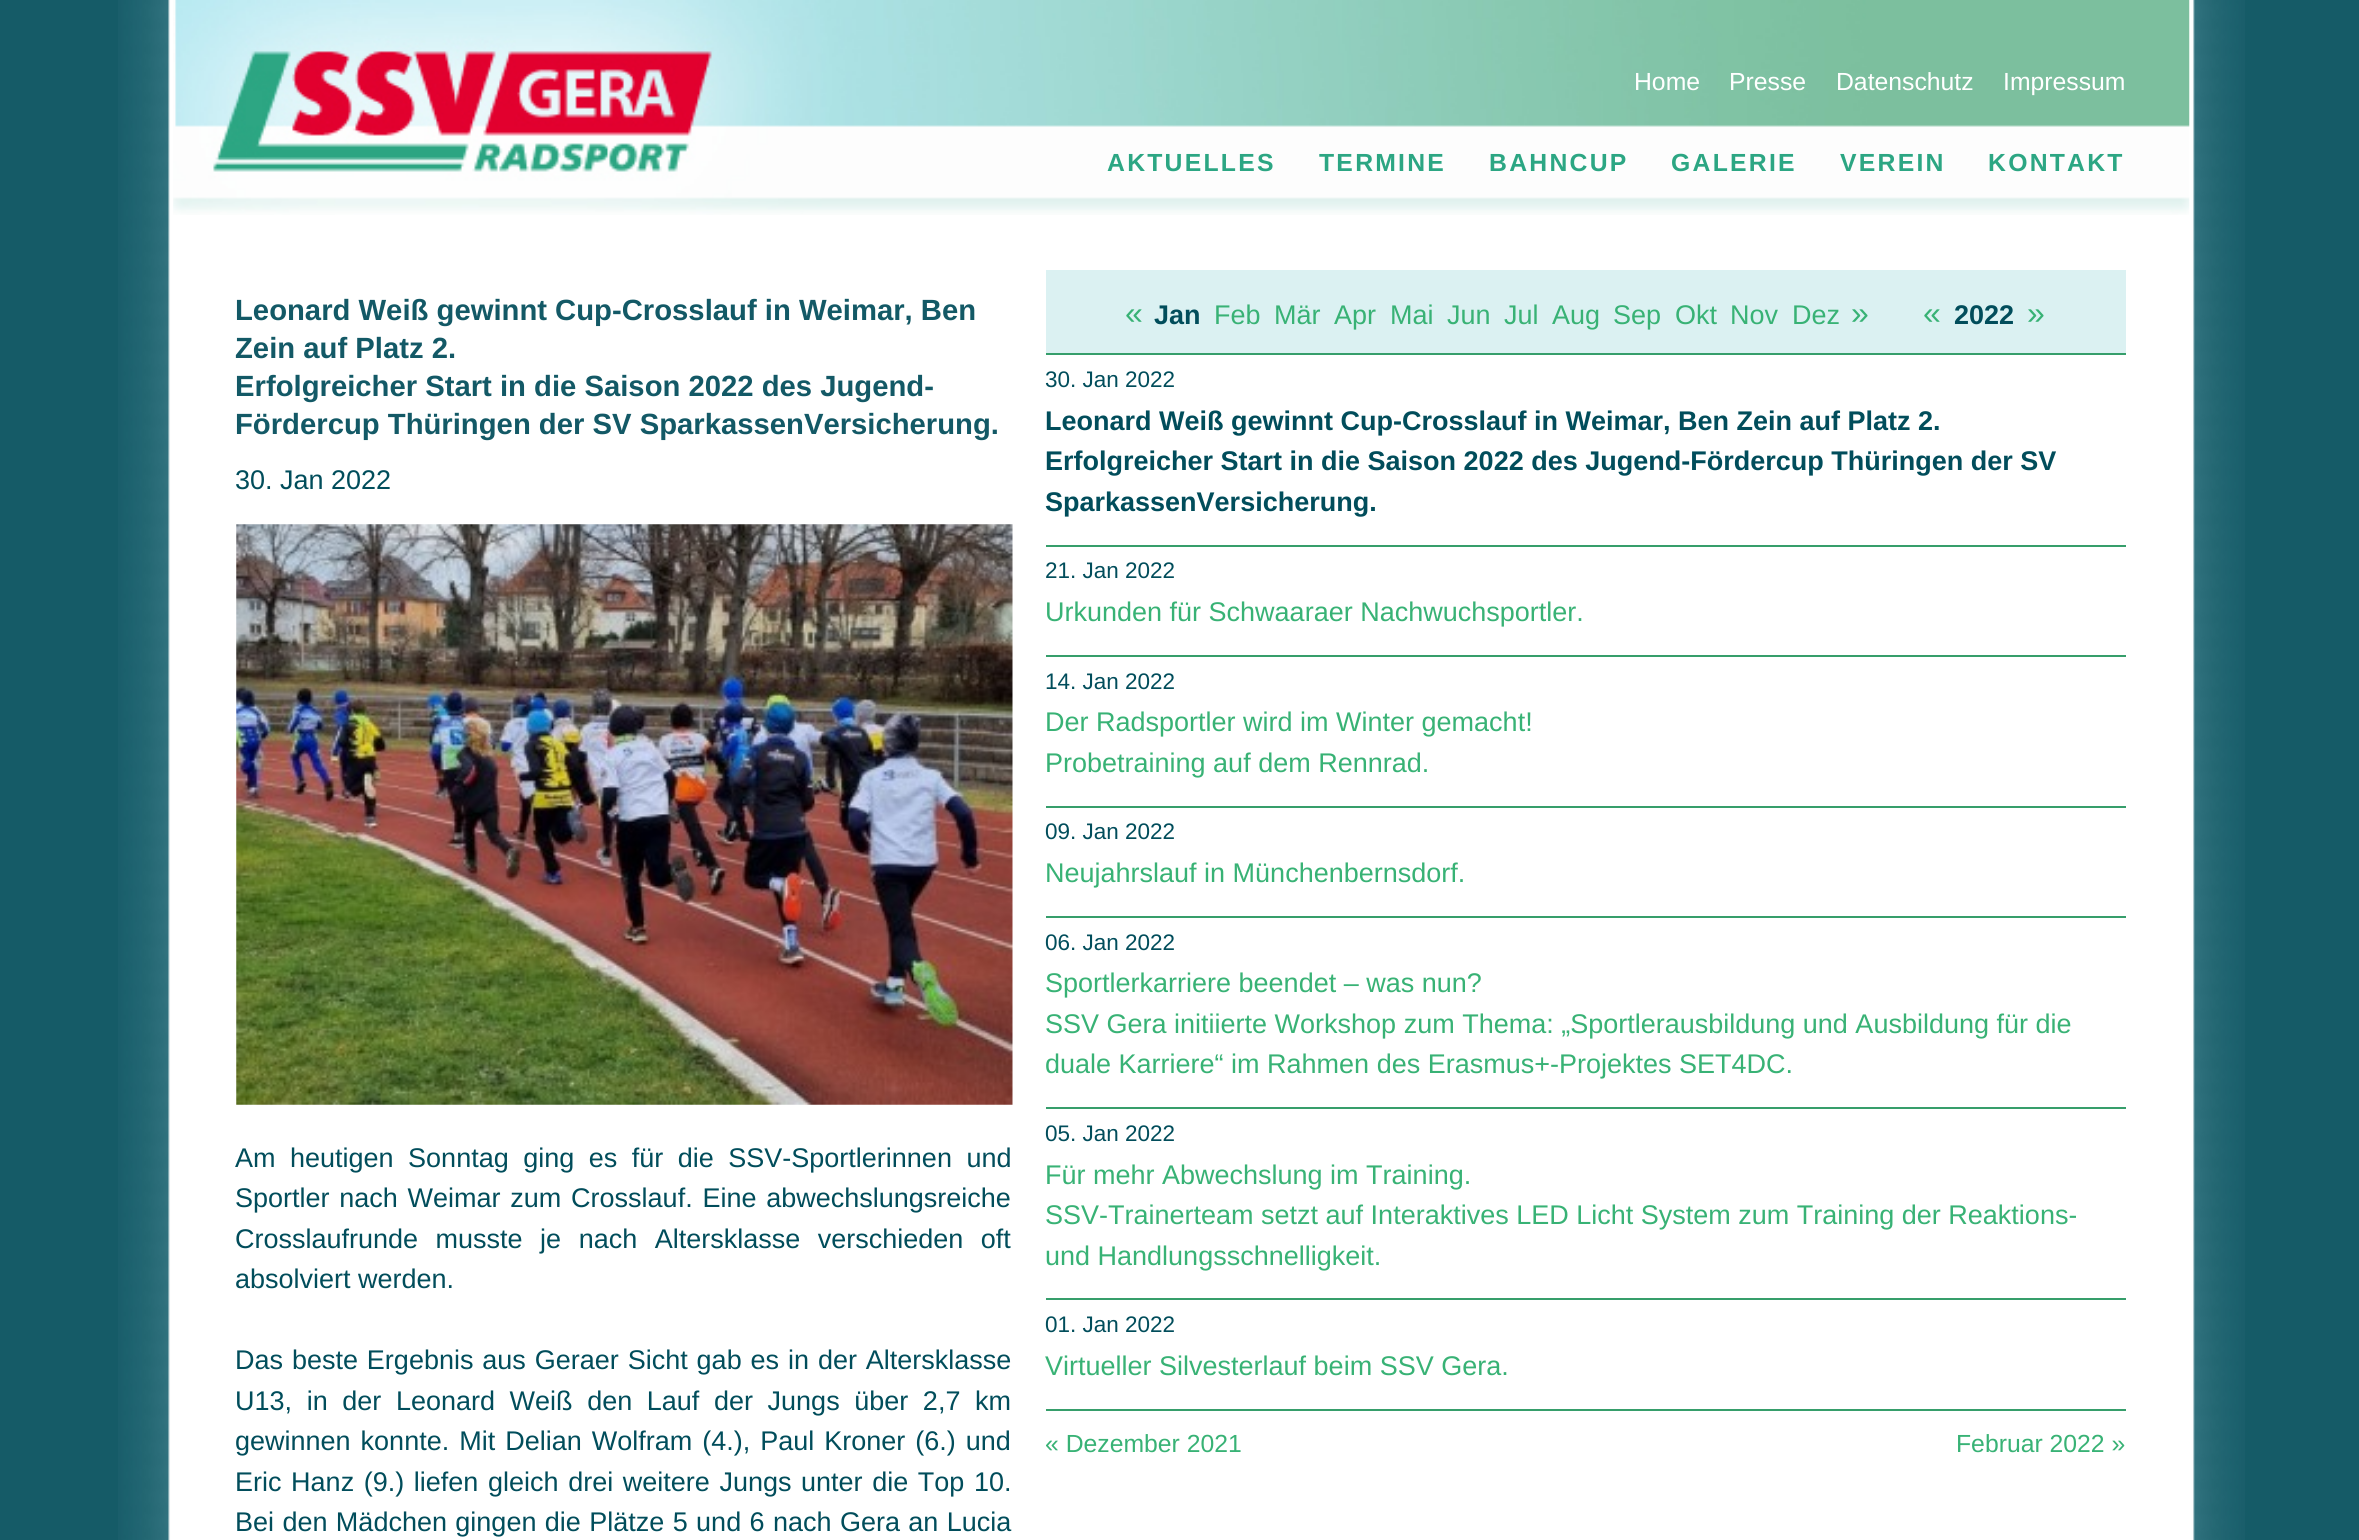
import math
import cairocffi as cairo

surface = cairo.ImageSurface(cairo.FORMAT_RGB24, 2359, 1540)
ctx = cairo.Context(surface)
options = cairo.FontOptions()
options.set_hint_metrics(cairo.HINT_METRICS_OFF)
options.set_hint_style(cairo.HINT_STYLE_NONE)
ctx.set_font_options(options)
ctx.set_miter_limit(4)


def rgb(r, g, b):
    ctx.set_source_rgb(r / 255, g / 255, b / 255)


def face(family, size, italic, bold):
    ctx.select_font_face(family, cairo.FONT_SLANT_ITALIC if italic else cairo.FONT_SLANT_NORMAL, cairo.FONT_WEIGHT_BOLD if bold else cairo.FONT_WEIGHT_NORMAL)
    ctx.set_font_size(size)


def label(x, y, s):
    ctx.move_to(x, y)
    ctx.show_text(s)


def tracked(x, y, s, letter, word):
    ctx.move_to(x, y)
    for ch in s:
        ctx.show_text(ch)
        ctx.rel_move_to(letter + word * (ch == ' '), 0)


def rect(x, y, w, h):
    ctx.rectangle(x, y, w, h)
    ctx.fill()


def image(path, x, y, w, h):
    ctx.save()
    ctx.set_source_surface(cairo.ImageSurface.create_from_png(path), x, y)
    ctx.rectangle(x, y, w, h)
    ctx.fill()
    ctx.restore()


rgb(21, 91, 103)
ctx.paint()
image('image0.png', 118, 0, 2127, 1540)
image('image1.png', 173, 0, 2017, 215)
face('Liberation Sans', 24.75, 0, 0)
rgb(255, 255, 255)
label(1634, 90, 'Home')
label(1729, 90, 'Presse')
label(1836, 90, 'Datenschutz')
label(2003, 90, 'Impressum')
face('Liberation Sans', 24.75, 0, 1)
rgb(44, 166, 131)
tracked(1107, 171, 'AKTUELLES', 2.25, 0)
tracked(1319, 171, 'TERMINE', 2.25, 0)
tracked(1489, 171, 'BAHNCUP', 2.25, 0)
tracked(1671, 171, 'GALERIE', 2.25, 0)
tracked(1840, 171, 'VEREIN', 2.25, 0)
tracked(1988, 171, 'KONTAKT', 2.25, 0)
face('Liberation Sans', 29.25, 0, 1)
rgb(19, 89, 102)
label(235, 320, 'Leonard Weiß gewinnt Cup-Crosslauf in Weimar, Ben')
label(235, 358, 'Zein auf Platz 2.')
label(235, 396, 'Erfolgreicher Start in die Saison 2022 des Jugend-')
label(235, 434, 'Fördercup Thüringen der SV SparkassenVersicherung.')
face('Liberation Sans', 27, 0, 0)
rgb(1, 77, 91)
label(235, 489, '30. Jan 2022')
image('image2.png', 236, 524, 777, 581)
tracked(235, 1167, 'Am heutigen Sonntag ging es für die SSV-Sportlerinnen und', 0, 7)
tracked(235, 1207, 'Sportler nach Weimar zum Crosslauf. Eine abwechslungsreiche', 0, 2.25)
tracked(235, 1248, 'Crosslaufrunde musste je nach Altersklasse verschieden oft', 0, 10)
label(235, 1288, 'absolviert werden.')
tracked(235, 1369, 'Das beste Ergebnis aus Geraer Sicht gab es in der Altersklasse', 0, 1.4)
tracked(235, 1410, 'U13, in der Leonard Weiß den Lauf der Jungs über 2,7 km', 0, 7.1)
tracked(235, 1450, 'gewinnen konnte. Mit Delian Wolfram (4.), Paul Kroner (6.) und', 0, 2.5)
tracked(235, 1491, 'Eric Hanz (9.) liefen gleich drei weitere Jungs unter die Top 10.', 0, 2.1)
tracked(235, 1531, 'Bei den Mädchen gingen die Plätze 5 und 6 nach Gera an Lucia', 0, 0.9)
rgb(219, 241, 242)
rect(1046, 270, 1080, 83)
face('Liberation Sans', 32, 0, 0)
rgb(56, 178, 117)
label(1125, 324, '«')
face('Liberation Sans', 27, 0, 1)
rgb(1, 77, 91)
label(1154, 324, 'Jan')
face('Liberation Sans', 27, 0, 0)
rgb(56, 178, 117)
label(1214, 324, 'Feb')
label(1274, 324, 'Mär')
label(1334, 324, 'Apr')
label(1390, 324, 'Mai')
label(1447, 324, 'Jun')
label(1504, 324, 'Jul')
label(1552, 324, 'Aug')
label(1613, 324, 'Sep')
label(1675, 324, 'Okt')
label(1730, 324, 'Nov')
label(1792, 324, 'Dez')
face('Liberation Sans', 32, 0, 0)
label(1851, 324, '»')
label(1923, 324, '«')
face('Liberation Sans', 27, 0, 1)
rgb(1, 77, 91)
label(1954, 324, '2022')
face('Liberation Sans', 32, 0, 0)
rgb(56, 178, 117)
label(2027, 324, '»')
rgb(54, 158, 107)
rect(1046, 353, 1080, 2)
face('Liberation Sans', 22.5, 0, 0)
rgb(1, 77, 91)
label(1045, 387, '30. Jan 2022')
face('Liberation Sans', 27, 0, 1)
label(1045, 430, 'Leonard Weiß gewinnt Cup-Crosslauf in Weimar, Ben Zein auf Platz 2.')
label(1045, 470, 'Erfolgreicher Start in die Saison 2022 des Jugend-Fördercup Thüringen der SV')
label(1045, 511, 'SparkassenVersicherung.')
rgb(54, 158, 107)
rect(1046, 545, 1080, 2)
face('Liberation Sans', 22.5, 0, 0)
rgb(1, 77, 91)
label(1045, 578, '21. Jan 2022')
face('Liberation Sans', 27, 0, 0)
rgb(56, 178, 117)
label(1045, 621, 'Urkunden für Schwaaraer Nachwuchsportler.')
rgb(54, 158, 107)
rect(1046, 655, 1080, 2)
face('Liberation Sans', 22.5, 0, 0)
rgb(1, 77, 91)
label(1045, 689, '14. Jan 2022')
face('Liberation Sans', 27, 0, 0)
rgb(56, 178, 117)
label(1045, 731, 'Der Radsportler wird im Winter gemacht!')
label(1045, 772, 'Probetraining auf dem Rennrad.')
rgb(54, 158, 107)
rect(1046, 806, 1080, 2)
face('Liberation Sans', 22.5, 0, 0)
rgb(1, 77, 91)
label(1045, 839, '09. Jan 2022')
face('Liberation Sans', 27, 0, 0)
rgb(56, 178, 117)
label(1045, 882, 'Neujahrslauf in Münchenbernsdorf.')
rgb(54, 158, 107)
rect(1046, 916, 1080, 2)
face('Liberation Sans', 22.5, 0, 0)
rgb(1, 77, 91)
label(1045, 950, '06. Jan 2022')
face('Liberation Sans', 27, 0, 0)
rgb(56, 178, 117)
label(1045, 992, 'Sportlerkarriere beendet – was nun?')
label(1045, 1033, 'SSV Gera initiierte Workshop zum Thema: „Sportlerausbildung und Ausbildung für die')
label(1045, 1073, 'duale Karriere“ im Rahmen des Erasmus+-Projektes SET4DC.')
rgb(54, 158, 107)
rect(1046, 1107, 1080, 2)
face('Liberation Sans', 22.5, 0, 0)
rgb(1, 77, 91)
label(1045, 1141, '05. Jan 2022')
face('Liberation Sans', 27, 0, 0)
rgb(56, 178, 117)
label(1045, 1184, 'Für mehr Abwechslung im Training.')
label(1045, 1224, 'SSV-Trainerteam setzt auf Interaktives LED Licht System zum Training der Reaktions-')
label(1045, 1265, 'und Handlungsschnelligkeit.')
rgb(54, 158, 107)
rect(1046, 1298, 1080, 2)
face('Liberation Sans', 22.5, 0, 0)
rgb(1, 77, 91)
label(1045, 1332, '01. Jan 2022')
face('Liberation Sans', 27, 0, 0)
rgb(56, 178, 117)
label(1045, 1375, 'Virtueller Silvesterlauf beim SSV Gera.')
rgb(54, 158, 107)
rect(1046, 1409, 1080, 2)
face('Liberation Sans', 24.75, 0, 0)
rgb(56, 178, 117)
label(1045, 1452, '« Dezember 2021')
label(1956, 1452, 'Februar 2022 »')
surface.write_to_png('render.png')
